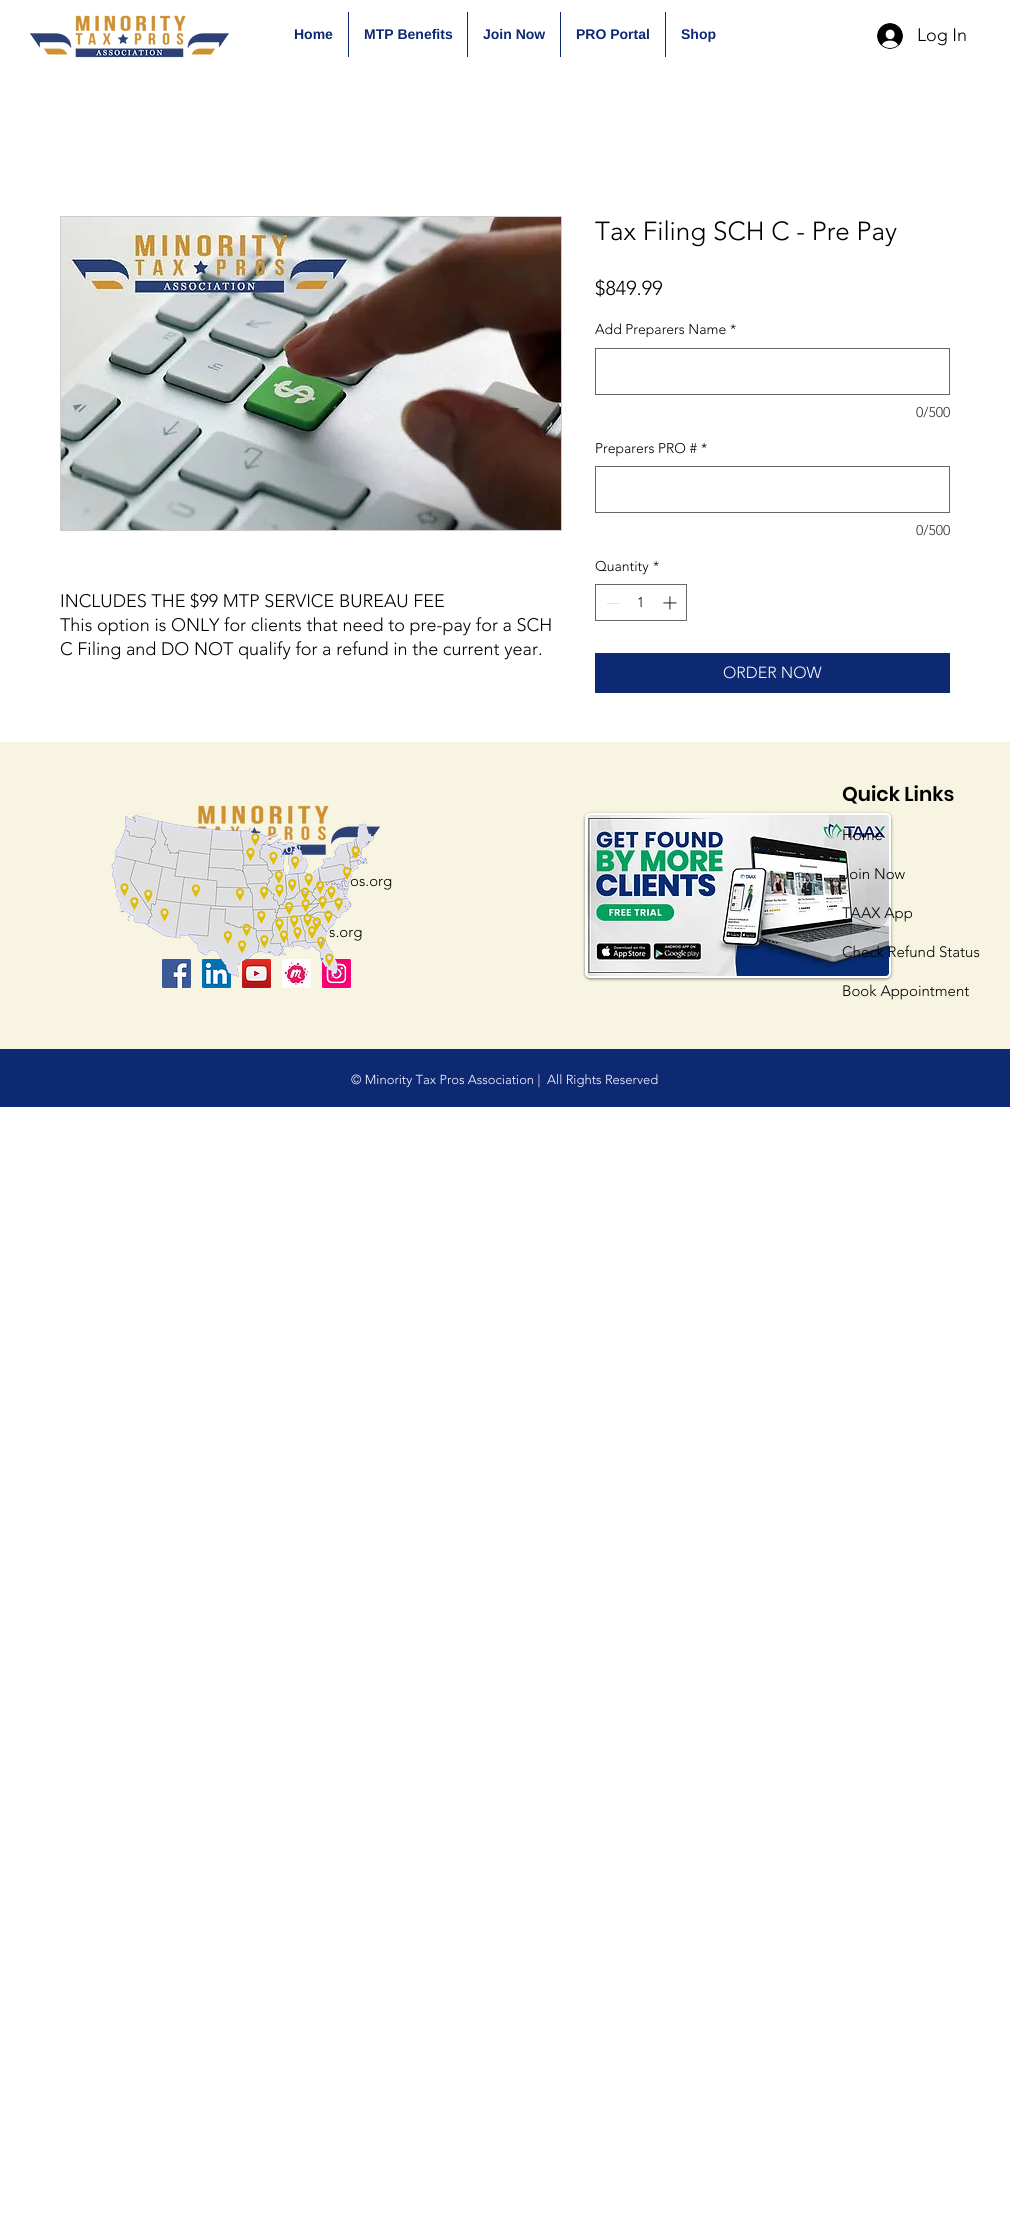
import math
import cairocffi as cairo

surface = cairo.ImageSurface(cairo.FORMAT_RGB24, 1010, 2225)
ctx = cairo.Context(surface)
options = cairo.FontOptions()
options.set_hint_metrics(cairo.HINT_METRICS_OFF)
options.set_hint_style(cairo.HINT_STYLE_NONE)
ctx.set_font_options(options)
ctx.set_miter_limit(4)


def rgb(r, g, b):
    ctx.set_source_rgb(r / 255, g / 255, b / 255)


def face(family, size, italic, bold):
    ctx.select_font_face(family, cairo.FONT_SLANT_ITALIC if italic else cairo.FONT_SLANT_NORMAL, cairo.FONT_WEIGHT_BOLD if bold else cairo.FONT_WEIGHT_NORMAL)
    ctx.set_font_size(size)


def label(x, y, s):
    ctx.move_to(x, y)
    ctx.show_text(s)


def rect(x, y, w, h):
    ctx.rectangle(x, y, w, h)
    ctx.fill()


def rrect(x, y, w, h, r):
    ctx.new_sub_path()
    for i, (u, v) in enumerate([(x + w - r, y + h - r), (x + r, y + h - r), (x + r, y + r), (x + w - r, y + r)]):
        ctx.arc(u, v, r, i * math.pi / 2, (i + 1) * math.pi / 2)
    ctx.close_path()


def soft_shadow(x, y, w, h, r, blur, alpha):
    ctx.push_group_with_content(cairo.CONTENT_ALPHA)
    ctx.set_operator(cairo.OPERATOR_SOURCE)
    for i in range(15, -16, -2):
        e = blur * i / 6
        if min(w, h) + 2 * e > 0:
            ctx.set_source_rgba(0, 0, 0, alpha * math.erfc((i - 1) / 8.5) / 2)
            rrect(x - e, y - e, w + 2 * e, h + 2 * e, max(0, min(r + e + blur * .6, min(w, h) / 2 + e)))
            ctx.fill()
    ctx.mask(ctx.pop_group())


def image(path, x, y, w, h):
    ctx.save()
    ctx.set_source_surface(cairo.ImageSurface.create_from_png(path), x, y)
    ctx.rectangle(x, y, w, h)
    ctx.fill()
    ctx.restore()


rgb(255, 255, 255)
ctx.paint()
image('image0.png', 30, 15, 199, 43)
face('Liberation Sans', 14, 0, 1)
rgb(14, 41, 115)
label(294, 39, 'Home')
rect(348, 12, 1, 45)
label(364, 39, 'MTP Benefits')
rect(467, 12, 1, 45)
label(483, 39, 'Join Now')
rect(560, 12, 1, 45)
label(576, 39, 'PRO Portal')
rect(665, 12, 1, 45)
label(681, 39, 'Shop')
image('image1.png', 877, 23, 26, 26)
face('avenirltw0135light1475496 Light', 18, 0, 0)
rgb(0, 0, 0)
label(917, 41, 'Log In')
ctx.rectangle(60.5, 216.5, 501, 314)
rgb(204, 204, 204)
ctx.set_line_width(1)
ctx.stroke()
image('image2.png', 61, 217, 500, 313)
rgb(0, 0, 0)
label(60, 607, 'INCLUDES THE $99 MTP SERVICE BUREAU FEE')
label(60, 631, 'This option is ONLY for clients that need to pre-pay for a SCH')
label(60, 655, 'C Filing and DO NOT qualify for a refund in the current year.')
face('avenirltw0135light1475496 Light', 26, 0, 0)
label(595, 240, 'Tax Filing SCH C - Pre Pay')
face('avenirltw0135light1475496 Light', 20, 0, 0)
label(595, 295, '$849.99')
face('avenirltw0135light1475496 Light', 14, 0, 0)
label(595, 334, 'Add Preparers Name')
label(730, 334, '*')
ctx.rectangle(595.5, 348.5, 354, 46)
rgb(102, 102, 102)
ctx.stroke()
rgb(51, 51, 51)
label(916, 417, '0/500')
rgb(0, 0, 0)
label(595, 453, 'Preparers PRO #')
label(701, 453, '*')
ctx.rectangle(595.5, 466.5, 354, 46)
rgb(102, 102, 102)
ctx.stroke()
rgb(51, 51, 51)
label(916, 535, '0/500')
rgb(0, 0, 0)
label(595, 571, 'Quantity')
label(653, 571, '*')
ctx.rectangle(595.5, 584.5, 91, 36)
rgb(102, 102, 102)
ctx.stroke()
rgb(227, 227, 227)
rect(607, 603, 13, 1)
rgb(0, 0, 0)
label(637, 607, '1')
image('image3.png', 663, 596, 14, 14)
rgb(14, 41, 115)
rect(595, 653, 355, 40)
face('avenirltw0135light1475496 Light', 16, 0, 0)
rgb(255, 255, 255)
label(723, 678, 'ORDER NOW')
rgb(247, 245, 225)
rect(0, 742, 1010, 307)
image('image6.png', 172, 805, 208, 50)
face('avenirltw0135light1475496 Light', 15, 0, 0)
rgb(0, 0, 0)
label(350, 886, 'os.org')
label(329, 937, 's.org')
image('image7.png', 162, 959, 29, 29)
image('image8.png', 202, 959, 29, 29)
image('image9.png', 242, 959, 29, 29)
image('image10.png', 282, 959, 29, 29)
image('image11.png', 322, 959, 29, 29)
image('image4.png', 111, 813, 263, 165)
rgb(0, 0, 0)
soft_shadow(585, 814, 306, 165, 5, 1.5, 0.5)
rgb(255, 255, 255)
rrect(586, 814, 304, 163, 4)
ctx.fill_preserve()
ctx.set_line_width(2)
ctx.stroke()
image('image5.png', 587, 815, 302, 161)
face('Poppins SemiBold', 20, 0, 0)
rgb(0, 0, 0)
label(842, 801, 'Quick Links')
face('avenirltw0135light1475496 Light', 15, 0, 0)
label(842, 840, 'Home')
label(842, 879, 'Join Now')
label(842, 918, 'TAAX App')
label(842, 957, 'Check Refund Status')
label(842, 996, 'Book Appointment')
rgb(14, 41, 115)
rect(0, 1049, 1010, 58)
face('avenirltw0135light1475496 Light', 13, 0, 0)
rgb(255, 255, 255)
label(351, 1084, '© Minority Tax Pros Association |  All Rights Reserved')
surface.write_to_png('render.png')
